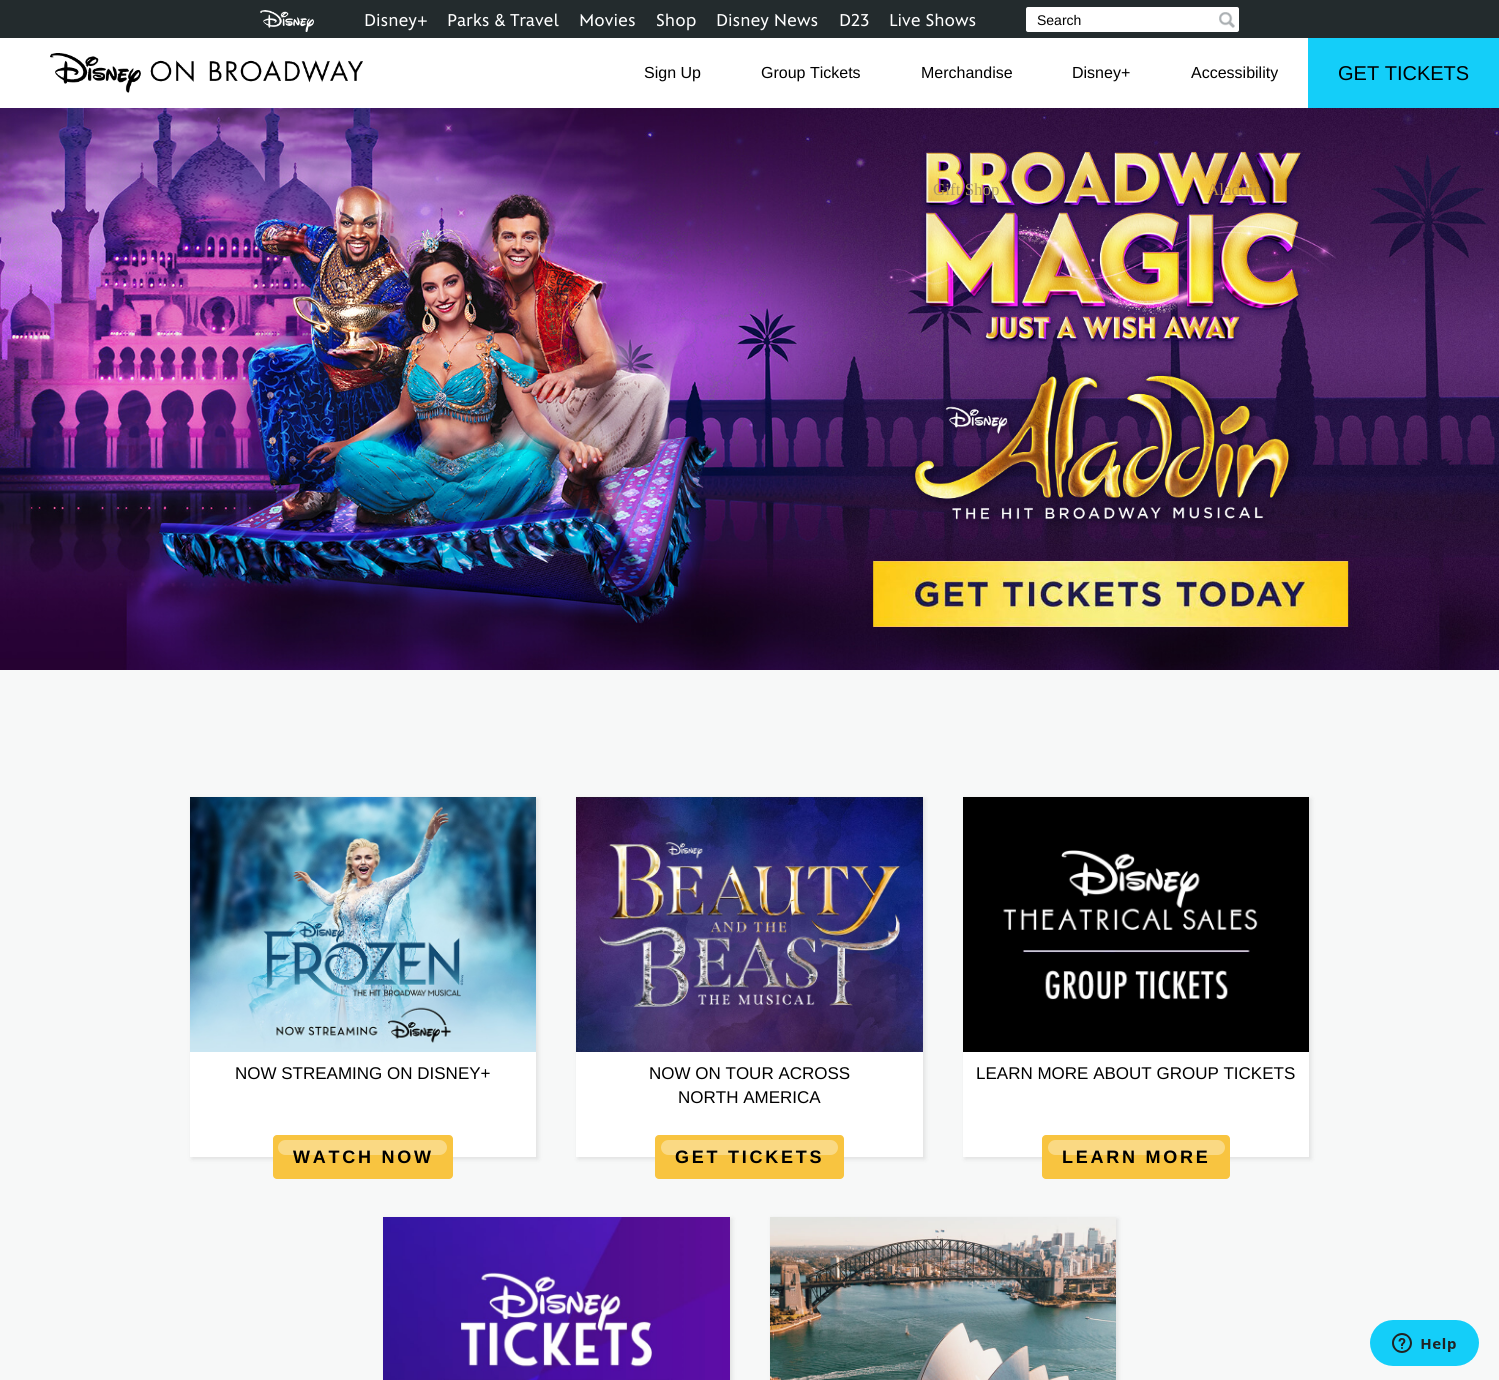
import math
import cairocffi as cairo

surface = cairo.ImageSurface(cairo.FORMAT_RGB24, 1499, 1380)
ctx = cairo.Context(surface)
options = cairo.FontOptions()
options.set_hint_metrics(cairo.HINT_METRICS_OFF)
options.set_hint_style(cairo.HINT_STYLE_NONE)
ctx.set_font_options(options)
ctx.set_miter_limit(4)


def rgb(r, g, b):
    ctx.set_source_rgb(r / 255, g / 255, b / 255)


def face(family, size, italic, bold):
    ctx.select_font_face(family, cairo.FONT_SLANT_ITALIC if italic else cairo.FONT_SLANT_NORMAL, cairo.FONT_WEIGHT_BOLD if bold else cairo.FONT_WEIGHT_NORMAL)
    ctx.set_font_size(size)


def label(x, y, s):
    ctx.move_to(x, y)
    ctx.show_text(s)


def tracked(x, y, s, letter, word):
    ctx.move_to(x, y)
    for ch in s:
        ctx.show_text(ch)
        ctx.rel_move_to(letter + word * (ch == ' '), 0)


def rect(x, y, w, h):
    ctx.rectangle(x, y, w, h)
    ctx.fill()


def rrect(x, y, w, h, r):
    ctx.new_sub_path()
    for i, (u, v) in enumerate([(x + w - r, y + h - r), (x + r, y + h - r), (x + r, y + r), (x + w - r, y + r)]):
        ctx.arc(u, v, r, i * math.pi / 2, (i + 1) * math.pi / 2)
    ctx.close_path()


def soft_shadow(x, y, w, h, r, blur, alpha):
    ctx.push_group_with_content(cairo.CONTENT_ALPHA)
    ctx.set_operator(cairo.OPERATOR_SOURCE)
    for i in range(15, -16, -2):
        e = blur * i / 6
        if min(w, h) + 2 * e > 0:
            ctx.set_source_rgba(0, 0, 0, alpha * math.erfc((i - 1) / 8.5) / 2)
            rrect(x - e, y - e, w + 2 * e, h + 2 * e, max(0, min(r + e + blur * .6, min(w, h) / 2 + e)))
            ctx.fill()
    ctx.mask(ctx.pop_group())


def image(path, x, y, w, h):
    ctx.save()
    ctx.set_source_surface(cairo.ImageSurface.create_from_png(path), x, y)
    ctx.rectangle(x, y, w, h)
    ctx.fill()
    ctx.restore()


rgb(247, 248, 248)
ctx.paint()
rgb(35, 43, 45)
rect(0, 0, 1499, 38)
image('image0.png', 260, 10, 54, 22)
face('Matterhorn', 17, 0, 0)
rgb(255, 255, 255)
label(364, 26, 'Disney+')
label(447, 26, 'Parks & Travel')
label(579, 26, 'Movies')
label(656, 26, 'Shop')
label(716, 26, 'Disney News')
label(839, 26, 'D23')
label(889, 26, 'Live Shows')
rrect(1026, 7, 213, 25, 2)
ctx.fill()
image('image1.png', 1219, 12, 16, 16)
face('Liberation Sans', 14, 0, 0)
rgb(0, 0, 0)
label(1037, 25, 'Search')
rgb(255, 255, 255)
rect(0, 38, 1308, 70)
image('image2.png', 50, 53, 313, 40)
face('Liberation Sans', 16, 0, 0)
rgb(0, 0, 0)
label(644, 78, 'Sign Up')
label(761, 78, 'Group Tickets')
label(921, 78, 'Merchandise')
image('image3.png', 0, 108, 1499, 562)
face('Liberation Serif', 17, 0, 0)
rgb(179, 156, 100)
label(933, 195, 'Gift Shop')
face('Liberation Sans', 16, 0, 0)
rgb(0, 0, 0)
label(1072, 78, 'Disney+')
label(1191, 78, 'Accessibility')
face('Liberation Serif', 17, 0, 0)
rgb(192, 145, 68)
label(1207, 195, 'Aladdin')
rgb(20, 206, 249)
rect(1308, 38, 191, 70)
face('Liberation Sans', 20, 0, 0)
rgb(0, 0, 0)
label(1338, 80, 'GET TICKETS')
rgb(0, 0, 0)
soft_shadow(192, 799, 346, 360, 0, 2.5, 0.1)
rgb(255, 255, 255)
rect(190, 1052, 346, 105)
image('image4.png', 190, 797, 346, 255)
face('Liberation Sans', 17, 0, 0)
rgb(0, 0, 0)
label(235, 1079, 'NOW STREAMING ON DISNEY+')
rgb(248, 196, 64)
rrect(273, 1135, 180, 44, 4)
ctx.fill()
rgb(250, 217, 131)
rrect(278, 1140, 169, 15, 7.5)
ctx.fill()
face('Liberation Sans', 18, 0, 1)
rgb(0, 0, 0)
tracked(293, 1163, 'WATCH NOW', 2.75, 0)
rgb(0, 0, 0)
soft_shadow(578, 799, 347, 360, 0, 2.5, 0.1)
rgb(255, 255, 255)
rect(576, 1052, 347, 105)
image('image5.png', 576, 797, 347, 255)
face('Liberation Sans', 17, 0, 0)
rgb(0, 0, 0)
label(649, 1079, 'NOW ON TOUR ACROSS')
label(678, 1103, 'NORTH AMERICA')
rgb(248, 196, 64)
rrect(655, 1135, 189, 44, 4)
ctx.fill()
rgb(250, 217, 131)
rrect(661, 1140, 177, 15, 7.5)
ctx.fill()
face('Liberation Sans', 18, 0, 1)
rgb(0, 0, 0)
tracked(675, 1163, 'GET TICKETS', 2.75, 0)
rgb(0, 0, 0)
soft_shadow(965, 799, 346, 360, 0, 2.5, 0.1)
rgb(255, 255, 255)
rect(963, 1052, 346, 105)
image('image6.png', 963, 797, 346, 255)
face('Liberation Sans', 17, 0, 0)
rgb(0, 0, 0)
label(976, 1079, 'LEARN MORE ABOUT GROUP TICKETS')
rgb(248, 196, 64)
rrect(1042, 1135, 188, 44, 4)
ctx.fill()
rgb(250, 217, 131)
rrect(1048, 1140, 177, 15, 7.5)
ctx.fill()
face('Liberation Sans', 18, 0, 1)
rgb(0, 0, 0)
tracked(1062, 1163, 'LEARN MORE', 2.75, 0)
rgb(0, 0, 0)
soft_shadow(385, 1219, 347, 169, 0, 2.5, 0.1)
image('image7.png', 383, 1217, 347, 163)
soft_shadow(772, 1219, 346, 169, 0, 2.5, 0.1)
image('image8.png', 770, 1217, 346, 163)
image('image9.png', 1370, 1320, 109, 46)
surface.write_to_png('render.png')
